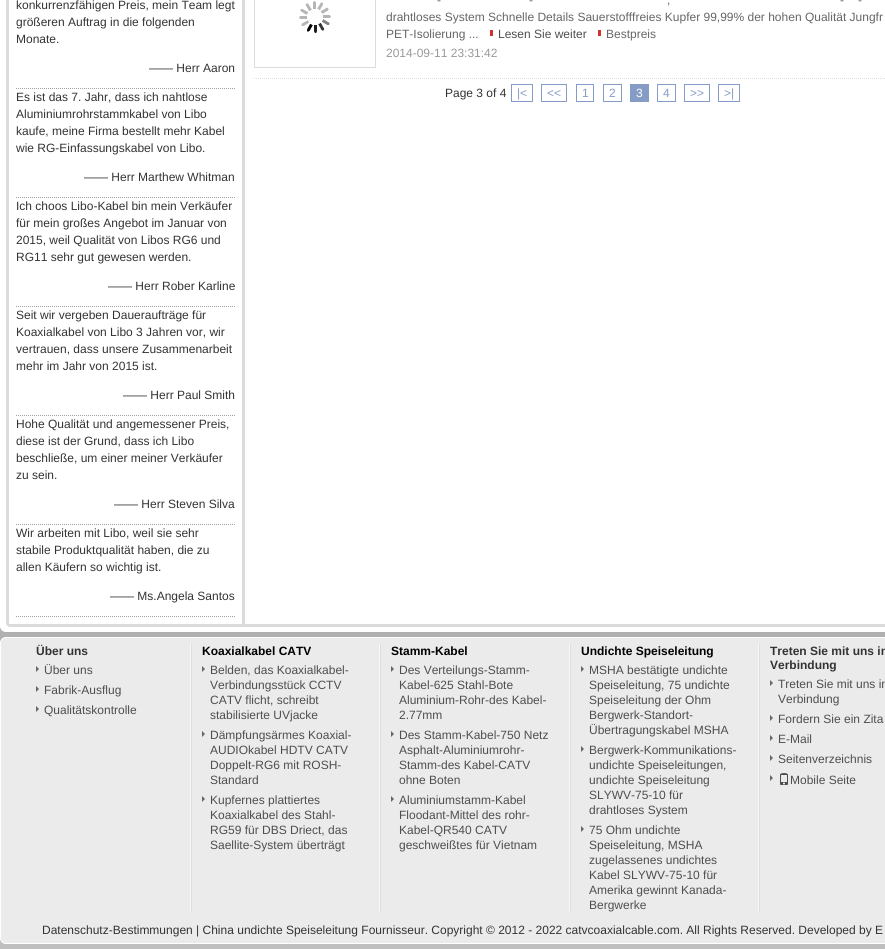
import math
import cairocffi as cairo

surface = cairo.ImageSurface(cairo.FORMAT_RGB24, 885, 949)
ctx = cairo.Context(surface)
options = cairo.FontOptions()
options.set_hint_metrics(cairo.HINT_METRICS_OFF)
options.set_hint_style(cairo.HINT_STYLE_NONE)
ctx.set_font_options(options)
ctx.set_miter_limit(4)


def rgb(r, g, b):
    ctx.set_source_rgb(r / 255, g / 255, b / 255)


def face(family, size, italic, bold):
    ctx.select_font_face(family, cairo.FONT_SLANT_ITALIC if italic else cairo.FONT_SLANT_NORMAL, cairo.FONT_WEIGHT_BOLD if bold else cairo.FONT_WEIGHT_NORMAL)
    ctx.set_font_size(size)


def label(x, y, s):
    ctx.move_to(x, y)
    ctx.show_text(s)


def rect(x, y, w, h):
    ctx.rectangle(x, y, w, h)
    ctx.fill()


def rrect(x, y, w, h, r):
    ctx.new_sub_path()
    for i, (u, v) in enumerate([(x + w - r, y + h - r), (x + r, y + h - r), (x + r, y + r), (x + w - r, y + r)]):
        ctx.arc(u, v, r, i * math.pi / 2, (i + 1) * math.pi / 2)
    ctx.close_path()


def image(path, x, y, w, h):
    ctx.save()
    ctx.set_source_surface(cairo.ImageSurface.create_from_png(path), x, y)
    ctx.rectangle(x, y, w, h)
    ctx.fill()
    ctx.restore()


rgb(255, 255, 255)
ctx.paint()
gradient = cairo.LinearGradient(442, -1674, 443, 949)
gradient.add_color_stop_rgba(0, 0.267, 0.267, 0.267, 1)
gradient.add_color_stop_rgba(1, 0.749, 0.749, 0.749, 1)
ctx.set_source(gradient)
rect(0, 626, 885, 323)
rgb(255, 255, 255)
ctx.new_path()
ctx.move_to(0, -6)
ctx.line_to(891, -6)
ctx.line_to(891, 626)
ctx.curve_to(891, 629.5, 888.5, 632, 885, 632)
ctx.line_to(6, 632)
ctx.curve_to(2.5, 632, 0, 629.5, 0, 626)
ctx.close_path()
ctx.fill()
rrect(7.5, -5.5, 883, 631, 2.5)
rgb(219, 219, 219)
ctx.set_line_width(3)
ctx.stroke()
ctx.new_path()
ctx.move_to(16, 88.5)
ctx.line_to(235, 88.5)
rgb(162, 162, 162)
ctx.set_line_width(1)
ctx.set_dash([1, 1])
ctx.stroke()
face('Liberation Sans', 12, 0, 0)
rgb(51, 51, 51)
label(16, 9, 'konkurrenzfähigen Preis, mein Team legt')
label(16, 26, 'größeren Auftrag in die folgenden')
label(16, 43, 'Monate.')
label(149, 72, '—— Herr Aaron')
ctx.new_path()
ctx.move_to(16, 197.5)
ctx.line_to(235, 197.5)
rgb(162, 162, 162)
ctx.stroke()
rgb(51, 51, 51)
label(16, 101, 'Es ist das 7. Jahr, dass ich nahtlose')
label(16, 118, 'Aluminiumrohrstammkabel von Libo')
label(16, 135, 'kaufe, meine Firma bestellt mehr Kabel')
label(16, 152, 'wie RG-Einfassungskabel von Libo.')
label(84, 181, '—— Herr Marthew Whitman')
ctx.new_path()
ctx.move_to(16, 306.5)
ctx.line_to(235, 306.5)
rgb(162, 162, 162)
ctx.stroke()
rgb(51, 51, 51)
label(16, 210, 'Ich choos Libo-Kabel bin mein Verkäufer')
label(16, 227, 'für mein großes Angebot im Januar von')
label(16, 244, '2015, weil Qualität von Libos RG6 und')
label(16, 261, 'RG11 sehr gut gewesen werden.')
label(108, 290, '—— Herr Rober Karline')
ctx.new_path()
ctx.move_to(16, 415.5)
ctx.line_to(235, 415.5)
rgb(162, 162, 162)
ctx.stroke()
rgb(51, 51, 51)
label(16, 319, 'Seit wir vergeben Daueraufträge für')
label(16, 336, 'Koaxialkabel von Libo 3 Jahren vor, wir')
label(16, 353, 'vertrauen, dass unsere Zusammenarbeit')
label(16, 370, 'mehr im Jahr von 2015 ist.')
label(123, 399, '—— Herr Paul Smith')
ctx.new_path()
ctx.move_to(16, 524.5)
ctx.line_to(235, 524.5)
rgb(162, 162, 162)
ctx.stroke()
rgb(51, 51, 51)
label(16, 428, 'Hohe Qualität und angemessener Preis,')
label(16, 445, 'diese ist der Grund, dass ich Libo')
label(16, 462, 'beschließe, um einer meiner Verkäufer')
label(16, 479, 'zu sein.')
label(114, 508, '—— Herr Steven Silva')
ctx.new_path()
ctx.move_to(16, 616.5)
ctx.line_to(235, 616.5)
rgb(162, 162, 162)
ctx.stroke()
rgb(51, 51, 51)
label(16, 537, 'Wir arbeiten mit Libo, weil sie sehr')
label(16, 554, 'stabile Produktqualität haben, die zu')
label(16, 571, 'allen Käufern so wichtig ist.')
label(110, 600, '—— Ms.Angela Santos')
rgb(219, 219, 219)
rect(242, 0, 3, 624)
ctx.new_path()
ctx.move_to(254, 78.5)
ctx.line_to(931, 78.5)
rgb(220, 220, 220)
ctx.stroke()
ctx.rectangle(254.5, -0.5, 121, 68)
ctx.set_dash([])
ctx.stroke()
image('image0.png', 299, 1, 32, 32)
rgb(102, 102, 102)
label(437, 4, '-')
label(529, 4, '-')
label(840, 4, '-')
label(858, 4, '-')
label(667, 4, ',')
label(386, 21, 'drahtloses System Schnelle Details Sauerstofffreies Kupfer 99,99% der hohen Qualität Jungfr')
label(386, 38, 'PET-Isolierung ...')
rgb(78, 78, 78)
label(498, 38, 'Lesen Sie weiter')
rgb(212, 49, 46)
rect(490, 30, 3, 6)
rgb(102, 102, 102)
label(606, 38, 'Bestpreis')
rgb(212, 49, 46)
rect(598, 30, 3, 6)
rgb(153, 153, 153)
label(386, 57, '2014-09-11 23:31:42')
rgb(51, 51, 51)
label(445, 97, 'Page 3 of 4')
ctx.rectangle(511.5, 84.5, 21, 17)
rgb(132, 156, 198)
ctx.stroke()
label(517, 97, '|<')
ctx.rectangle(541.5, 84.5, 25, 17)
ctx.stroke()
label(547, 97, '<<')
ctx.rectangle(576.5, 84.5, 17, 17)
ctx.stroke()
label(582, 97, '1')
ctx.rectangle(603.5, 84.5, 18, 17)
ctx.stroke()
label(609, 97, '2')
rect(630, 84, 19, 18)
rgb(255, 255, 255)
label(636, 97, '3')
ctx.rectangle(657.5, 84.5, 18, 17)
rgb(132, 156, 198)
ctx.stroke()
label(663, 97, '4')
ctx.rectangle(684.5, 84.5, 25, 17)
ctx.stroke()
label(690, 97, '>>')
ctx.rectangle(718.5, 84.5, 21, 17)
ctx.stroke()
label(724, 97, '>|')
rgb(235, 235, 235)
rrect(0.5, 637.5, 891, 306, 5.5)
ctx.fill_preserve()
rgb(255, 255, 255)
ctx.stroke()
rgb(248, 248, 248)
rect(190, 644, 1, 269)
face('Liberation Sans', 12, 0, 1)
rgb(51, 51, 51)
label(36, 655, 'Über uns')
rgb(102, 102, 102)
ctx.new_path()
ctx.move_to(36, 672)
ctx.line_to(36, 666)
ctx.line_to(39, 669)
ctx.close_path()
ctx.fill()
face('Liberation Sans', 12, 0, 0)
rgb(78, 78, 78)
label(44, 674, 'Über uns')
rgb(102, 102, 102)
ctx.new_path()
ctx.move_to(36, 692)
ctx.line_to(36, 686)
ctx.line_to(39, 689)
ctx.close_path()
ctx.fill()
rgb(78, 78, 78)
label(44, 694, 'Fabrik-Ausflug')
rgb(102, 102, 102)
ctx.new_path()
ctx.move_to(36, 712)
ctx.line_to(36, 706)
ctx.line_to(39, 709)
ctx.close_path()
ctx.fill()
rgb(78, 78, 78)
label(44, 714, 'Qualitätskontrolle')
rgb(248, 248, 248)
rect(379, 644, 1, 269)
rgb(222, 222, 222)
rect(191, 644, 1, 269)
face('Liberation Sans', 12, 0, 1)
rgb(0, 0, 0)
label(202, 655, 'Koaxialkabel CATV')
rgb(102, 102, 102)
ctx.new_path()
ctx.move_to(202, 672)
ctx.line_to(202, 666)
ctx.line_to(205, 669)
ctx.close_path()
ctx.fill()
face('Liberation Sans', 12, 0, 0)
rgb(78, 78, 78)
label(210, 674, 'Belden, das Koaxialkabel-')
label(210, 689, 'Verbindungsstück CCTV')
label(210, 704, 'CATV flicht, schreibt')
label(210, 719, 'stabilisierte UVjacke')
rgb(102, 102, 102)
ctx.new_path()
ctx.move_to(202, 737)
ctx.line_to(202, 731)
ctx.line_to(205, 734)
ctx.close_path()
ctx.fill()
rgb(78, 78, 78)
label(210, 739, 'Dämpfungsärmes Koaxial-')
label(210, 754, 'AUDIOkabel HDTV CATV')
label(210, 769, 'Doppelt-RG6 mit ROSH-')
label(210, 784, 'Standard')
rgb(102, 102, 102)
ctx.new_path()
ctx.move_to(202, 802)
ctx.line_to(202, 796)
ctx.line_to(205, 799)
ctx.close_path()
ctx.fill()
rgb(78, 78, 78)
label(210, 804, 'Kupfernes plattiertes')
label(210, 819, 'Koaxialkabel des Stahl-')
label(210, 834, 'RG59 für DBS Driect, das')
label(210, 849, 'Saellite-System überträgt')
rgb(248, 248, 248)
rect(569, 644, 1, 269)
rgb(222, 222, 222)
rect(380, 644, 1, 269)
face('Liberation Sans', 12, 0, 1)
rgb(0, 0, 0)
label(391, 655, 'Stamm-Kabel')
rgb(102, 102, 102)
ctx.new_path()
ctx.move_to(391, 672)
ctx.line_to(391, 666)
ctx.line_to(394, 669)
ctx.close_path()
ctx.fill()
face('Liberation Sans', 12, 0, 0)
rgb(78, 78, 78)
label(399, 674, 'Des Verteilungs-Stamm-')
label(399, 689, 'Kabel-625 Stahl-Bote')
label(399, 704, 'Aluminium-Rohr-des Kabel-')
label(399, 719, '2.77mm')
rgb(102, 102, 102)
ctx.new_path()
ctx.move_to(391, 737)
ctx.line_to(391, 731)
ctx.line_to(394, 734)
ctx.close_path()
ctx.fill()
rgb(78, 78, 78)
label(399, 739, 'Des Stamm-Kabel-750 Netz')
label(399, 754, 'Asphalt-Aluminiumrohr-')
label(399, 769, 'Stamm-des Kabel-CATV')
label(399, 784, 'ohne Boten')
rgb(102, 102, 102)
ctx.new_path()
ctx.move_to(391, 802)
ctx.line_to(391, 796)
ctx.line_to(394, 799)
ctx.close_path()
ctx.fill()
rgb(78, 78, 78)
label(399, 804, 'Aluminiumstamm-Kabel')
label(399, 819, 'Floodant-Mittel des rohr-')
label(399, 834, 'Kabel-QR540 CATV')
label(399, 849, 'geschweißtes für Vietnam')
rgb(248, 248, 248)
rect(758, 644, 1, 269)
rgb(222, 222, 222)
rect(570, 644, 1, 269)
face('Liberation Sans', 12, 0, 1)
rgb(0, 0, 0)
label(581, 655, 'Undichte Speiseleitung')
rgb(102, 102, 102)
ctx.new_path()
ctx.move_to(581, 672)
ctx.line_to(581, 666)
ctx.line_to(584, 669)
ctx.close_path()
ctx.fill()
face('Liberation Sans', 12, 0, 0)
rgb(78, 78, 78)
label(589, 674, 'MSHA bestätigte undichte')
label(589, 689, 'Speiseleitung, 75 undichte')
label(589, 704, 'Speiseleitung der Ohm')
label(589, 719, 'Bergwerk-Standort-')
label(589, 734, 'Übertragungskabel MSHA')
rgb(102, 102, 102)
ctx.new_path()
ctx.move_to(581, 752)
ctx.line_to(581, 746)
ctx.line_to(584, 749)
ctx.close_path()
ctx.fill()
rgb(78, 78, 78)
label(589, 754, 'Bergwerk-Kommunikations-')
label(589, 769, 'undichte Speiseleitungen,')
label(589, 784, 'undichte Speiseleitung')
label(589, 799, 'SLYWV-75-10 für')
label(589, 814, 'drahtloses System')
rgb(102, 102, 102)
ctx.new_path()
ctx.move_to(581, 832)
ctx.line_to(581, 826)
ctx.line_to(584, 829)
ctx.close_path()
ctx.fill()
rgb(78, 78, 78)
label(589, 834, '75 Ohm undichte')
label(589, 849, 'Speiseleitung, MSHA')
label(589, 864, 'zugelassenes undichtes')
label(589, 879, 'Kabel SLYWV-75-10 für')
label(589, 894, 'Amerika gewinnt Kanada-')
label(589, 909, 'Bergwerke')
rgb(222, 222, 222)
rect(759, 644, 1, 269)
face('Liberation Sans', 12, 0, 1)
rgb(51, 51, 51)
label(770, 655, 'Treten Sie mit uns in')
label(770, 669, 'Verbindung')
rgb(102, 102, 102)
ctx.new_path()
ctx.move_to(770, 686)
ctx.line_to(770, 680)
ctx.line_to(773, 683)
ctx.close_path()
ctx.fill()
face('Liberation Sans', 12, 0, 0)
rgb(78, 78, 78)
label(778, 688, 'Treten Sie mit uns in')
label(778, 703, 'Verbindung')
rgb(102, 102, 102)
ctx.new_path()
ctx.move_to(770, 721)
ctx.line_to(770, 715)
ctx.line_to(773, 718)
ctx.close_path()
ctx.fill()
rgb(78, 78, 78)
label(778, 723, 'Fordern Sie ein Zita')
rgb(102, 102, 102)
ctx.new_path()
ctx.move_to(770, 741)
ctx.line_to(770, 735)
ctx.line_to(773, 738)
ctx.close_path()
ctx.fill()
rgb(78, 78, 78)
label(778, 743, 'E-Mail')
rgb(102, 102, 102)
ctx.new_path()
ctx.move_to(770, 761)
ctx.line_to(770, 755)
ctx.line_to(773, 758)
ctx.close_path()
ctx.fill()
rgb(78, 78, 78)
label(778, 763, 'Seitenverzeichnis')
rgb(102, 102, 102)
ctx.new_path()
ctx.move_to(770, 781)
ctx.line_to(770, 775)
ctx.line_to(773, 778)
ctx.close_path()
ctx.fill()
image('image1.png', 780, 773, 8, 12)
rgb(78, 78, 78)
label(790, 784, 'Mobile Seite')
rgb(51, 51, 51)
label(42, 934, 'Datenschutz-Bestimmungen | China undichte Speiseleitung Fournisseur. Copyright © 2012 - 2022 catvcoaxialcable.com. All Rights Reserved. Developed by E')
surface.write_to_png('render.png')
